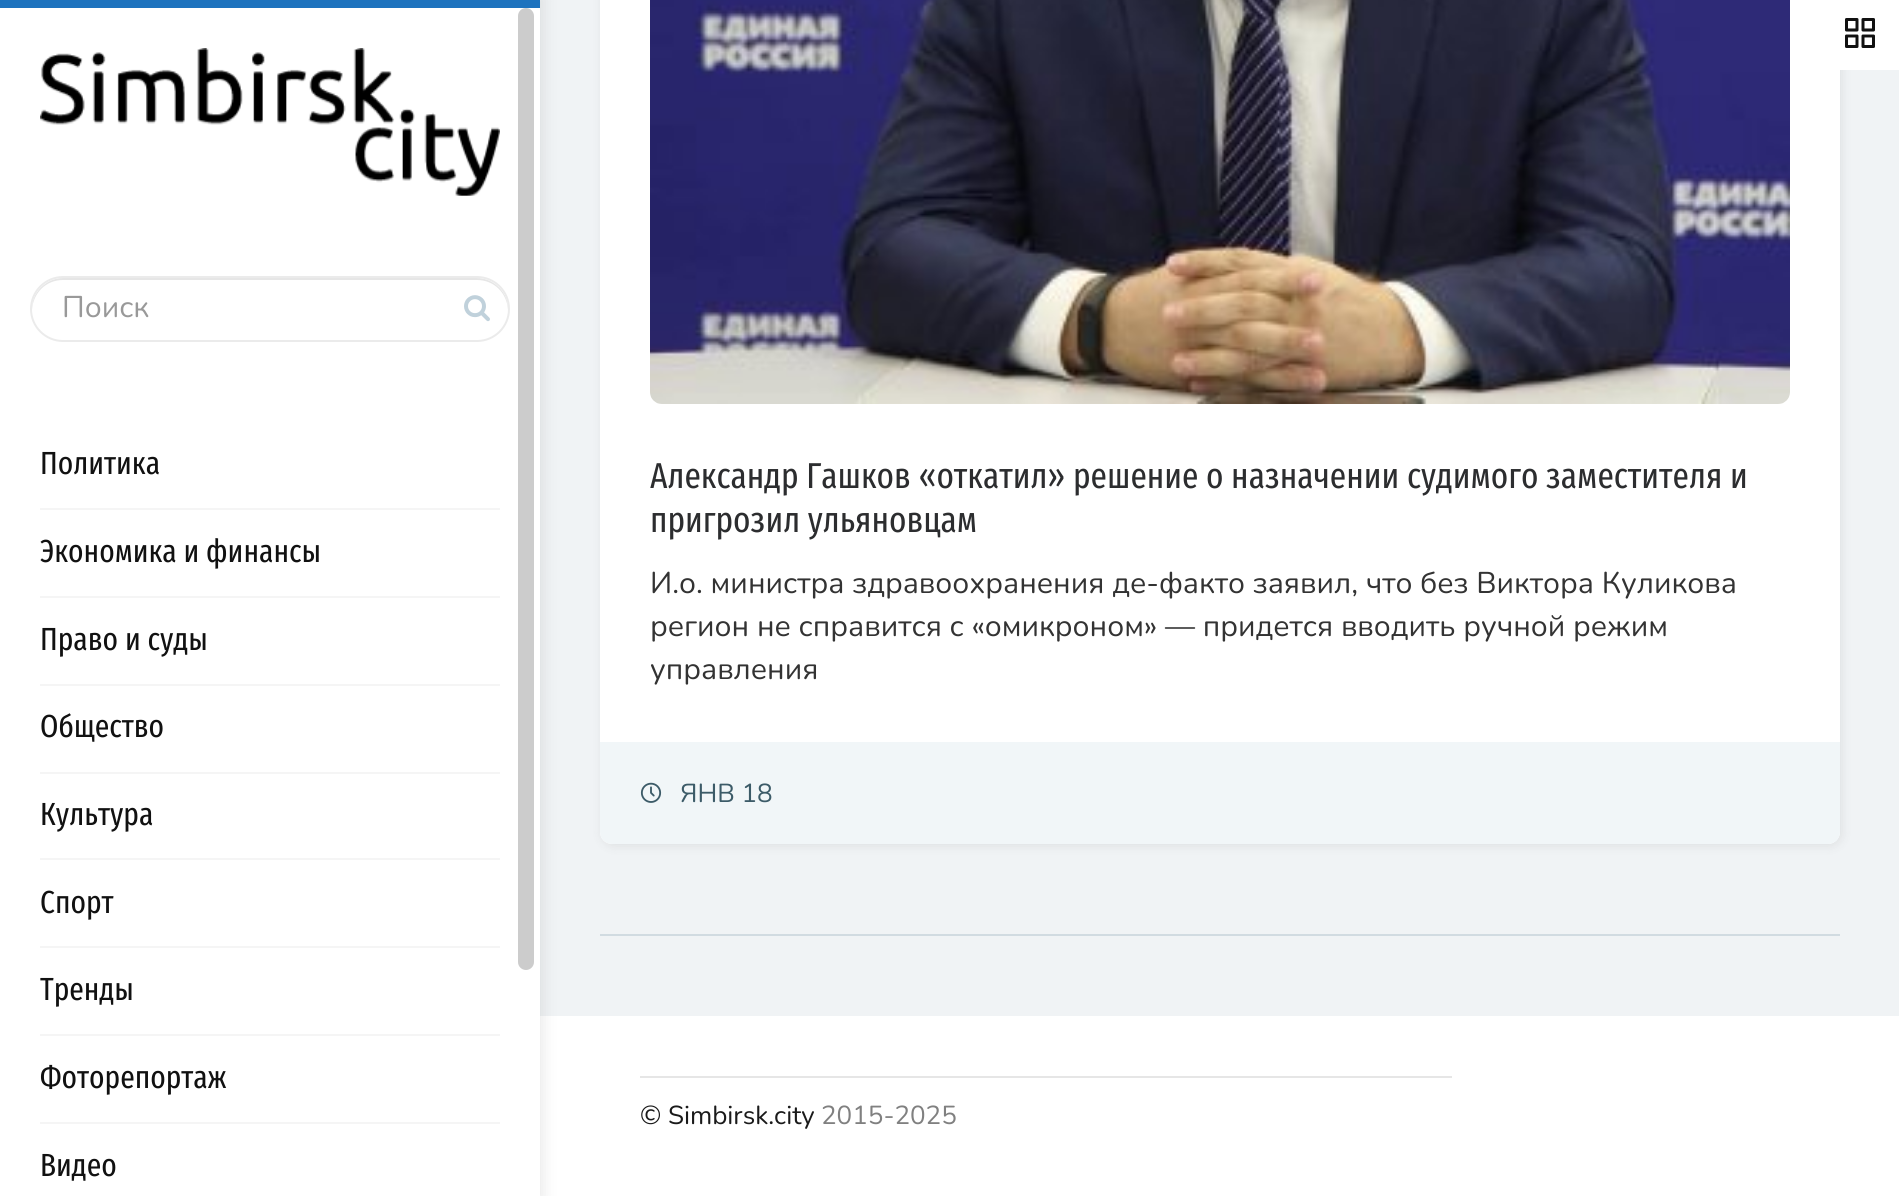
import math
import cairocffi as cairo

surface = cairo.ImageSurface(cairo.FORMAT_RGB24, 1899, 1196)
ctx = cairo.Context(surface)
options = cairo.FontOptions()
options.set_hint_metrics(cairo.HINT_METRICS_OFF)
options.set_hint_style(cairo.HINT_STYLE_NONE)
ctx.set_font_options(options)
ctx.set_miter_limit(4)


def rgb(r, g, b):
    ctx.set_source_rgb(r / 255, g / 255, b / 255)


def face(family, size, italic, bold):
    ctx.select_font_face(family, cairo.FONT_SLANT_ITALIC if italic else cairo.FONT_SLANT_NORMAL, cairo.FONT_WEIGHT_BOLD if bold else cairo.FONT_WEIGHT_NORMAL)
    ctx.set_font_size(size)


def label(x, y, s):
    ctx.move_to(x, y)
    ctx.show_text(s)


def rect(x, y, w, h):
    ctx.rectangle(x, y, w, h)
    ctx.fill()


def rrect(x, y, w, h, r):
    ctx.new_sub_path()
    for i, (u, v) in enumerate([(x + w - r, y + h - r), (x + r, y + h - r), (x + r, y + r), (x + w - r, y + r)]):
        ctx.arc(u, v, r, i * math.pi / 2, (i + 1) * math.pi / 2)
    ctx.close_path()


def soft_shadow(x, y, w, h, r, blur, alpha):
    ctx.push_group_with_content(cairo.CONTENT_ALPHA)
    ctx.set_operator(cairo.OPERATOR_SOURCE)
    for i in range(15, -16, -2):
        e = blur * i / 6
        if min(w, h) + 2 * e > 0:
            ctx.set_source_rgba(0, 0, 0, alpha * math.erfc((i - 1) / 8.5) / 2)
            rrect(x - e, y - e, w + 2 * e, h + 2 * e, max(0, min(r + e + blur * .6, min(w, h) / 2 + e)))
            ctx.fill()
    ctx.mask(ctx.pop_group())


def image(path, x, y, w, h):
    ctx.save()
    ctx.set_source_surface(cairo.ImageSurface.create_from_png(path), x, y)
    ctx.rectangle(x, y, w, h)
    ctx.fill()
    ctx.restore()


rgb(240, 243, 245)
ctx.paint()
rgb(50, 50, 50)
soft_shadow(602, -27, 1240, 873, 12, 5, 0.1)
rgb(255, 255, 255)
rect(1840, 0, 59, 70)
image('image0.png', 1845, 18, 30, 30)
rect(540, 1016, 1359, 180)
rgb(0, 0, 0)
soft_shadow(-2, -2, 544, 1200, 0, 8, 0.1)
rgb(255, 255, 255)
rect(0, 8, 540, 1188)
rgb(30, 115, 190)
rect(0, 0, 540, 8)
image('image1.png', 40, 48, 460, 148)
rgb(230, 230, 230)
ctx.new_path()
ctx.move_to(63, 280)
ctx.line_to(477, 280)
ctx.curve_to(494, 280, 507, 293, 508, 310)
ctx.curve_to(509, 293, 494, 278, 477, 278)
ctx.line_to(63, 278)
ctx.curve_to(46, 278, 31, 293, 32, 310)
ctx.curve_to(33, 293, 46, 280, 63, 280)
ctx.close_path()
ctx.fill()
rrect(31, 277, 478, 64, 32)
rgb(235, 235, 235)
ctx.stroke()
face('Nunito', 30, 0, 0)
rgb(153, 153, 153)
label(62, 317, 'Поиск')
image('image2.png', 464, 295, 26, 27)
rgb(245, 245, 245)
rect(40, 508, 460, 2)
face('Fira Sans Extra Condensed', 32, 0, 0)
rgb(17, 17, 17)
label(40, 474, 'Политика')
rgb(245, 245, 245)
rect(40, 596, 460, 2)
rgb(17, 17, 17)
label(40, 562, 'Экономика и финансы')
rgb(245, 245, 245)
rect(40, 684, 460, 2)
rgb(17, 17, 17)
label(40, 650, 'Право и суды')
rgb(245, 245, 245)
rect(40, 772, 460, 2)
rgb(17, 17, 17)
label(40, 737, 'Общество')
rgb(245, 245, 245)
rect(40, 858, 460, 2)
rgb(17, 17, 17)
label(40, 825, 'Культура')
rgb(245, 245, 245)
rect(40, 946, 460, 2)
rgb(17, 17, 17)
label(40, 913, 'Спорт')
rgb(245, 245, 245)
rect(40, 1034, 460, 2)
rgb(17, 17, 17)
label(40, 1000, 'Тренды')
rgb(245, 245, 245)
rect(40, 1122, 460, 2)
rgb(17, 17, 17)
label(40, 1088, 'Фоторепортаж')
label(40, 1176, 'Видео')
rgb(204, 204, 204)
rrect(518, 8, 16, 962, 8)
ctx.fill()
rgb(255, 255, 255)
rrect(600, -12, 1240, 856, 12)
ctx.fill()
image('image3.png', 650, 0, 1140, 404)
face('Fira Sans Extra Condensed', 36, 0, 0)
rgb(44, 45, 47)
label(650, 488, 'Александр Гашков «откатил» решение о назначении судимого заместителя и')
label(650, 532, 'пригрозил ульяновцам')
face('Nunito', 30, 0, 0)
rgb(51, 51, 51)
label(650, 593, 'И.о. министра здравоохранения де-факто заявил, что без Виктора Куликова')
label(650, 636, 'регион не справится с «омикроном» — придется вводить ручной режим')
label(650, 679, 'управления')
rgb(241, 246, 248)
ctx.new_path()
ctx.move_to(600, 742)
ctx.line_to(1840, 742)
ctx.line_to(1840, 832)
ctx.curve_to(1840, 838.5, 1834.5, 844, 1828, 844)
ctx.line_to(612, 844)
ctx.curve_to(605.5, 844, 600, 838.5, 600, 832)
ctx.close_path()
ctx.fill()
image('image4.png', 640, 782, 22, 21)
face('Nunito', 26, 0, 0)
rgb(60, 91, 104)
label(680, 802, 'ЯНВ 18')
rgb(209, 219, 225)
rect(600, 934, 1240, 2)
rgb(230, 230, 230)
rect(640, 1076, 812, 2)
rgb(26, 26, 26)
label(640, 1124, '© Simbirsk.city')
rgb(128, 128, 128)
label(821, 1124, '2015-2025')
surface.write_to_png('render.png')
